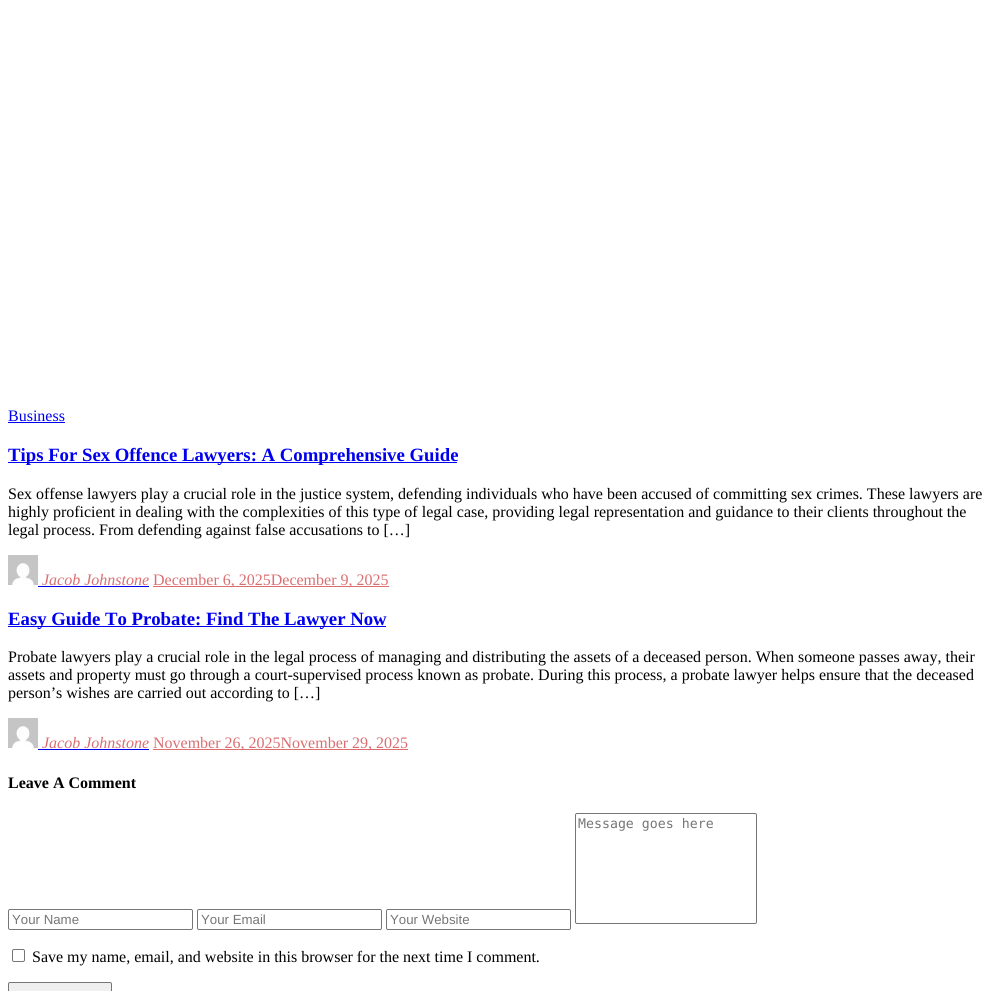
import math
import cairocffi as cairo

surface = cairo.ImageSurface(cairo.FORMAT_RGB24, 997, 991)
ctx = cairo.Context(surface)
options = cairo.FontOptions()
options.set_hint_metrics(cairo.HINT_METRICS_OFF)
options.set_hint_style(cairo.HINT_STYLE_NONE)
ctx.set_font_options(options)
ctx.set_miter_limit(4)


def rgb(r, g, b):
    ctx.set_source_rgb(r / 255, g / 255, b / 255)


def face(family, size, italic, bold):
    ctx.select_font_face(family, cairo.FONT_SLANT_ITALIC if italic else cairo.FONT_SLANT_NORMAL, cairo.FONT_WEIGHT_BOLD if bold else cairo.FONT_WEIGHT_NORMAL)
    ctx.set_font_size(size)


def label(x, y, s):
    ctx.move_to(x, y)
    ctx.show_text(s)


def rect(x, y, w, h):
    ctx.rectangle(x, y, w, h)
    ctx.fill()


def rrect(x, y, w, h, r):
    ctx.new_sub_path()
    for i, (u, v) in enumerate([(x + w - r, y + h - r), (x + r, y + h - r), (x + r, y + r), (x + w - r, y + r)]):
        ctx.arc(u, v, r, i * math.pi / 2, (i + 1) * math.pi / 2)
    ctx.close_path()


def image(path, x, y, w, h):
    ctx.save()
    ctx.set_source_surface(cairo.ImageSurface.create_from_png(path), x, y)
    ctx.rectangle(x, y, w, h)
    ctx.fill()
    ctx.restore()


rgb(255, 255, 255)
ctx.paint()
face('Liberation Serif', 16, 0, 0)
rgb(0, 0, 238)
label(8, 421, 'Business')
rect(8, 422, 57, 1)
rect(8, 462, 449, 1)
face('Liberation Serif', 18.75, 0, 1)
label(8, 461, 'Tips For Sex Offence Lawyers: A Comprehensive Guide')
face('Liberation Serif', 16, 0, 0)
rgb(0, 0, 0)
label(8, 499, 'Sex offense lawyers play a crucial role in the justice system, defending individuals who have been accused of committing sex crimes. These lawyers are')
label(8, 517, 'highly proficient in dealing with the complexities of this type of legal case, providing legal representation and guidance to their clients throughout the')
label(8, 535, 'legal process. From defending against false accusations to […]')
image('image0.png', 8, 555, 30, 30)
face('Liberation Serif', 16, 1, 0)
rgb(219, 110, 113)
label(42, 585, 'Jacob Johnstone')
rgb(0, 0, 238)
rect(38, 586, 111, 1)
rgb(219, 110, 113)
rect(153, 586, 236, 1)
face('Liberation Serif', 16, 0, 0)
label(153, 585, 'December 6, 2025December 9, 2025')
rgb(0, 0, 238)
rect(8, 626, 378, 1)
face('Liberation Serif', 18.75, 0, 1)
label(8, 625, 'Easy Guide To Probate: Find The Lawyer Now')
face('Liberation Serif', 16, 0, 0)
rgb(0, 0, 0)
label(8, 662, 'Probate lawyers play a crucial role in the legal process of managing and distributing the assets of a deceased person. When someone passes away, their')
label(8, 680, 'assets and property must go through a court-supervised process known as probate. During this process, a probate lawyer helps ensure that the deceased')
label(8, 698, 'person’s wishes are carried out according to […]')
image('image0.png', 8, 718, 30, 30)
face('Liberation Serif', 16, 1, 0)
rgb(219, 110, 113)
label(42, 748, 'Jacob Johnstone')
rgb(0, 0, 238)
rect(38, 749, 111, 1)
rgb(219, 110, 113)
rect(153, 749, 255, 1)
face('Liberation Serif', 16, 0, 0)
label(153, 748, 'November 26, 2025November 29, 2025')
face('Liberation Serif', 16, 0, 1)
rgb(0, 0, 0)
label(8, 788, 'Leave A Comment')
rrect(575.5, 813.5, 181, 110, 1.5)
rgb(118, 118, 118)
ctx.set_line_width(1)
ctx.stroke()
face('DejaVu Sans Mono', 13.25, 0, 0)
rgb(117, 117, 117)
label(578, 828, 'Message goes here')
rrect(8.5, 909.5, 184, 20, 1.5)
rgb(118, 118, 118)
ctx.stroke()
face('Liberation Sans', 13.25, 0, 0)
rgb(117, 117, 117)
label(12, 924, 'Your Name')
rrect(197.5, 909.5, 184, 20, 1.5)
rgb(118, 118, 118)
ctx.stroke()
rgb(117, 117, 117)
label(201, 924, 'Your Email')
rrect(386.5, 909.5, 184, 20, 1.5)
rgb(118, 118, 118)
ctx.stroke()
rgb(117, 117, 117)
label(390, 924, 'Your Website')
rrect(12.5, 949.5, 12, 12, 1.5)
rgb(118, 118, 118)
ctx.stroke()
face('Liberation Serif', 16, 0, 0)
rgb(0, 0, 0)
label(32, 962, 'Save my name, email, and website in this browser for the next time I comment.')
rgb(239, 239, 239)
rrect(8.5, 982.5, 103, 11, 1.5)
ctx.fill_preserve()
rgb(118, 118, 118)
ctx.stroke()
surface.write_to_png('render.png')
